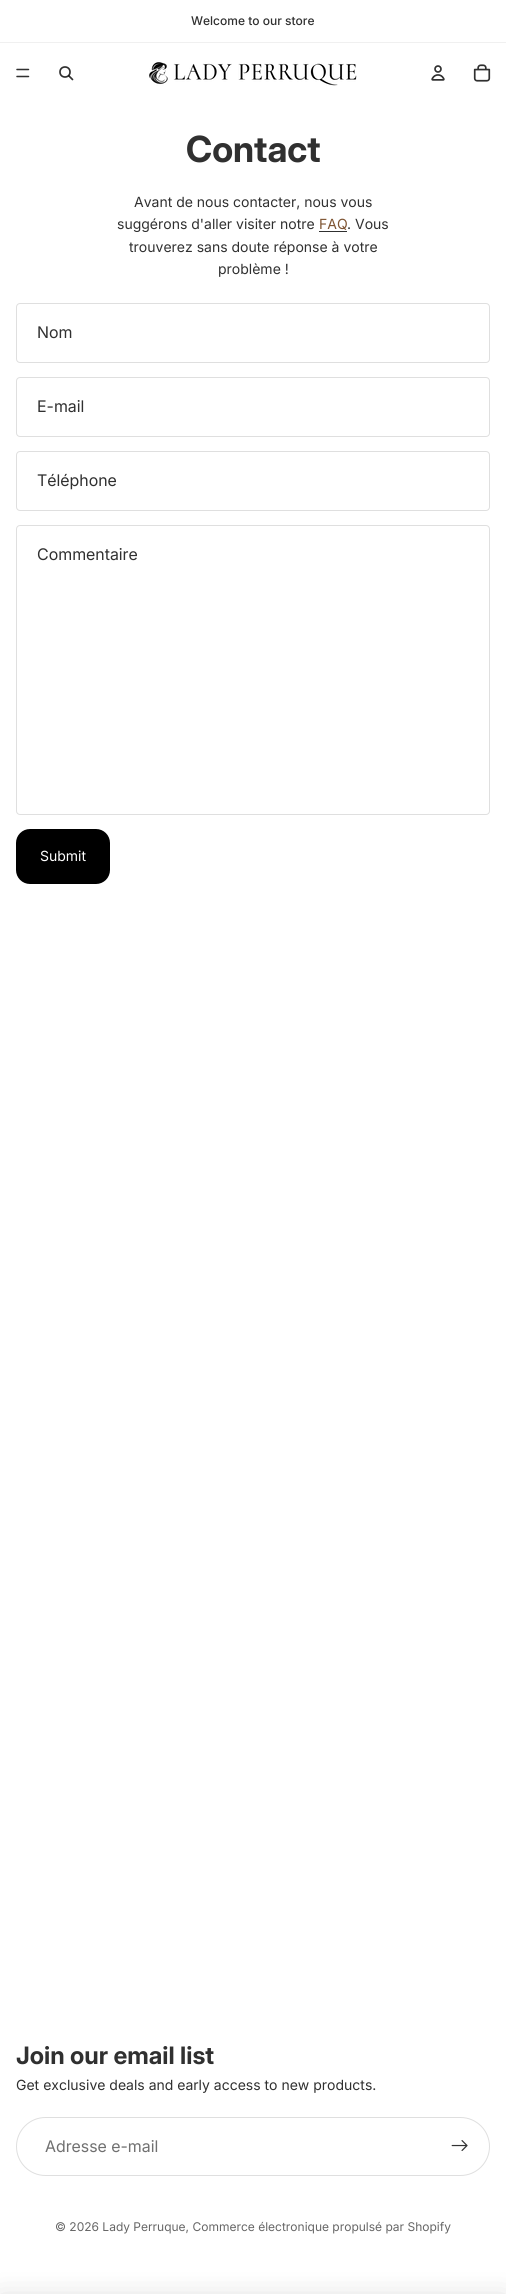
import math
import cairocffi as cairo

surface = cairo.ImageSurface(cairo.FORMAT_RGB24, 506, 2294)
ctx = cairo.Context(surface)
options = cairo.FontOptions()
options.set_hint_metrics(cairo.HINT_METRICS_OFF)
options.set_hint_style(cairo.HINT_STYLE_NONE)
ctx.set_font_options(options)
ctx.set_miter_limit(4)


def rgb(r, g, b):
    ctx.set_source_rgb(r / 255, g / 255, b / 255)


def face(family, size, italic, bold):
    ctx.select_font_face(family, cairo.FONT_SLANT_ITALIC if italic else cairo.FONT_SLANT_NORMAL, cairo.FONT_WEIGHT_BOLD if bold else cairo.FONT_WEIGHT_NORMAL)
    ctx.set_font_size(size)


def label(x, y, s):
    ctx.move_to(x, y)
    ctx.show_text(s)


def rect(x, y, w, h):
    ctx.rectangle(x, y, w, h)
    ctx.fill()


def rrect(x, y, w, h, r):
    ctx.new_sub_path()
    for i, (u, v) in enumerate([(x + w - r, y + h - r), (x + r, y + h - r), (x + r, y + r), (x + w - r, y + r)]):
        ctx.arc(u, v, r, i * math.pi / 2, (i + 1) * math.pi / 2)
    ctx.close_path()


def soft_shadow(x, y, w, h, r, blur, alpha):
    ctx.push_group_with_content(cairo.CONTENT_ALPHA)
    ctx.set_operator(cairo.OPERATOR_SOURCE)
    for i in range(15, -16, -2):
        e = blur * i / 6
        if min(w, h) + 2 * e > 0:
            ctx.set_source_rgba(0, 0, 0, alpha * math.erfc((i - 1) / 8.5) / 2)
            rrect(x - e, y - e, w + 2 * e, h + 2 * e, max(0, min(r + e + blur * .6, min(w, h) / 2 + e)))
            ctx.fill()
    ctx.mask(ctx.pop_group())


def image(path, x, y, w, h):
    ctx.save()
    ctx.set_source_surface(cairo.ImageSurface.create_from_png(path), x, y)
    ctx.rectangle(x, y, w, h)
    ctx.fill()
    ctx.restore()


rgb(255, 255, 255)
ctx.paint()
rgb(240, 240, 240)
rect(0, 42, 506, 1)
face('Inter Medium', 12, 0, 0)
rgb(48, 48, 48)
label(191, 25, 'Welcome to our store')
ctx.new_path()
ctx.move_to(17, 69.5)
ctx.line_to(28.5, 69.5)
ctx.move_to(17, 76.5)
ctx.line_to(28.5, 76.5)
ctx.set_line_width(1.5)
ctx.set_line_cap(cairo.LINE_CAP_ROUND)
ctx.stroke()
ctx.arc(65, 72, 5, 0, 2 * math.pi)
ctx.set_line_width(1.7)
ctx.set_line_cap(cairo.LINE_CAP_BUTT)
ctx.stroke()
ctx.new_path()
ctx.move_to(69, 76)
ctx.line_to(72.5, 79.5)
ctx.set_source_rgba(0, 0, 0, 0.81)
ctx.set_line_cap(cairo.LINE_CAP_ROUND)
ctx.set_line_join(cairo.LINE_JOIN_ROUND)
ctx.stroke()
image('image0.png', 149, 62, 208, 24)
image('image1.png', 431, 65, 14, 16)
image('image2.png', 473, 64, 18, 18)
face('Inter', 36, 0, 1)
rgb(48, 48, 48)
label(186, 162, 'Contact')
face('Inter', 14, 0, 0)
label(134, 207, 'Avant de nous contacter, nous vous')
label(117, 229, 'suggérons d\'aller visiter notre')
rgb(126, 84, 50)
label(319, 229, 'FAQ')
rgb(48, 48, 48)
rect(319, 231, 28, 1)
label(347, 229, '. Vous')
label(129, 252, 'trouverez sans doute réponse à votre')
label(218, 274, 'problème !')
rrect(16.5, 303.5, 473, 59, 3.5)
rgb(223, 223, 223)
ctx.set_line_width(1)
ctx.set_line_cap(cairo.LINE_CAP_BUTT)
ctx.set_line_join(cairo.LINE_JOIN_MITER)
ctx.stroke()
face('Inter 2', 16, 0, 0)
rgb(48, 48, 48)
label(37, 338, 'Nom')
rrect(16.5, 377.5, 473, 59, 3.5)
rgb(223, 223, 223)
ctx.stroke()
rgb(48, 48, 48)
label(37, 412, 'E-mail')
rrect(16.5, 451.5, 473, 59, 3.5)
rgb(223, 223, 223)
ctx.stroke()
rgb(48, 48, 48)
label(37, 486, 'Téléphone')
rrect(16.5, 525.5, 473, 289, 3.5)
rgb(223, 223, 223)
ctx.stroke()
rgb(48, 48, 48)
label(37, 560, 'Commentaire')
rgb(0, 0, 0)
rrect(16, 829, 94, 55, 14)
ctx.fill()
face('Inter', 14, 0, 0)
rgb(255, 255, 255)
label(40, 861, 'Submit')
face('Inter 2', 24, 0, 1)
rgb(48, 48, 48)
label(16, 2064, 'Join our email list')
face('Inter', 14, 0, 0)
label(16, 2090, 'Get exclusive deals and early access to new products.')
rrect(16.5, 2117.5, 473, 58, 29)
rgb(223, 223, 223)
ctx.stroke()
face('Inter 2', 16, 0, 0)
rgb(112, 112, 112)
label(45, 2152, 'Adresse e-mail')
image('image3.png', 451, 2140, 17, 11)
face('Inter', 12, 0, 0)
rgb(102, 102, 102)
label(55, 2231, '© 2026 Lady Perruque, Commerce électronique propulsé par Shopify')
rgb(0, 0, 0)
soft_shadow(0, 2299, 506, 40, 0, 15, 0.15)
surface.write_to_png('render.png')
